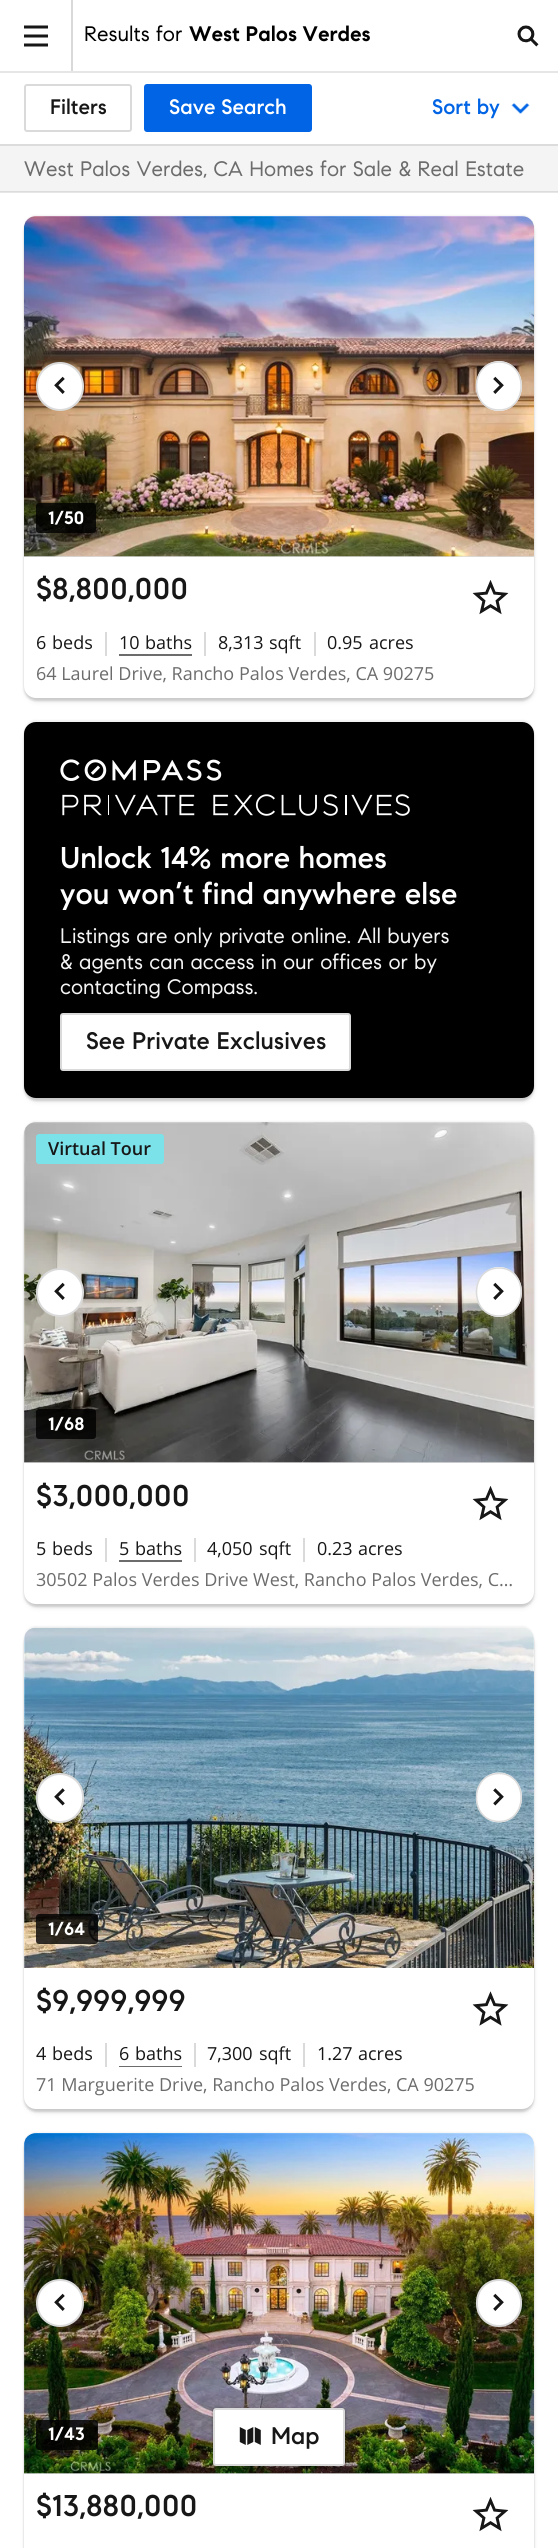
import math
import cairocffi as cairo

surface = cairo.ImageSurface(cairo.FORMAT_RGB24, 558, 2548)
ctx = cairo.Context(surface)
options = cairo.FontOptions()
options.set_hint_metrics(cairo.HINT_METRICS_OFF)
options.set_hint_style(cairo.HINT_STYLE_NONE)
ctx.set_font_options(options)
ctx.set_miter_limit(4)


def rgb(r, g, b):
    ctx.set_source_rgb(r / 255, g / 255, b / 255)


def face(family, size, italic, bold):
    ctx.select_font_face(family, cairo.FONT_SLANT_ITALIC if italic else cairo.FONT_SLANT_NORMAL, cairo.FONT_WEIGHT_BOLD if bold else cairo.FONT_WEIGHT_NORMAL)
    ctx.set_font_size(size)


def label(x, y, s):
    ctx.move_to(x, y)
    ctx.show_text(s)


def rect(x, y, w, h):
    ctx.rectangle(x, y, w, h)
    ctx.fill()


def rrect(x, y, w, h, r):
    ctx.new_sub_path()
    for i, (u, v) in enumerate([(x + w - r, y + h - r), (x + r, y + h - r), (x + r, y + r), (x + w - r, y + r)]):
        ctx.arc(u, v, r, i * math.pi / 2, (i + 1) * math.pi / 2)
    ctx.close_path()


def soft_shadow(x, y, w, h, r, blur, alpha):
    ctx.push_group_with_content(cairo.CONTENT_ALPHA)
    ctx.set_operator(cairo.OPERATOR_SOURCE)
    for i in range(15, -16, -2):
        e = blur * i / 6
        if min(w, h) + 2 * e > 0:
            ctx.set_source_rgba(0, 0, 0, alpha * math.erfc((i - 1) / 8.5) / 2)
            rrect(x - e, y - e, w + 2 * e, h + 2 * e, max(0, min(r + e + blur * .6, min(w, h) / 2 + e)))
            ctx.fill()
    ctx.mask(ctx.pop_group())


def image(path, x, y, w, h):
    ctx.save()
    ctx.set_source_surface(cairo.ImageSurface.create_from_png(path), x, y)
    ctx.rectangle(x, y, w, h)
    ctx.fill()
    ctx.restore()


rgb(255, 255, 255)
ctx.paint()
rgb(230, 230, 230)
rect(0, 192, 558, 1)
rect(0, 71, 558, 2)
rgb(217, 217, 217)
rect(71, 0, 2, 71)
image('image0.png', 24, 25, 24, 22)
face('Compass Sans', 21, 0, 0)
rgb(0, 0, 0)
label(84, 41, 'Results for')
face('Compass Sans', 21, 0, 1)
label(189, 41, 'West Palos Verdes')
image('image1.png', 517, 25, 22, 22)
rrect(25, 85, 106, 46, 2)
rgb(218, 218, 218)
ctx.stroke()
face('Compass Sans Medium', 21, 0, 0)
rgb(23, 23, 23)
label(50, 114, 'Filters')
rgb(0, 100, 229)
rrect(145, 85, 166, 46, 2)
ctx.fill_preserve()
ctx.stroke()
rgb(255, 255, 255)
label(169, 114, 'Save Search')
rgb(0, 100, 229)
label(432, 114, 'Sort by')
image('image2.png', 511, 103, 19, 11)
rgb(244, 244, 244)
rect(0, 146, 558, 45)
rgb(220, 220, 220)
rect(0, 191, 558, 1)
rect(0, 144, 558, 2)
face('Compass Sans', 21, 0, 0)
rgb(108, 108, 108)
label(24, 176, 'West Palos Verdes, CA Homes for Sale & Real Estate')
rgb(0, 0, 0)
soft_shadow(24, 215, 510, 481, 12, 1, 0.06)
soft_shadow(24, 219, 510, 482, 12, 1, 0.14)
soft_shadow(26, 222, 507, 479, 11, 3, 0.1)
rgb(255, 255, 255)
rrect(24, 216, 510, 482, 12)
ctx.fill()
rgb(218, 218, 218)
ctx.new_path()
ctx.move_to(36, 216)
ctx.line_to(522, 216)
ctx.curve_to(528.5, 216, 534, 221.5, 534, 228)
ctx.line_to(534, 557)
ctx.line_to(24, 557)
ctx.line_to(24, 228)
ctx.curve_to(24, 221.5, 29.5, 216, 36, 216)
ctx.close_path()
ctx.fill()
image('image3.png', 24, 216, 510, 341)
rgb(255, 255, 255)
rrect(37, 363, 46, 47, 23)
ctx.fill_preserve()
rgb(218, 218, 218)
ctx.stroke()
image('image4.png', 54, 376, 11, 18)
rgb(255, 255, 255)
ctx.new_path()
ctx.move_to(499, 361)
ctx.curve_to(511.5, 361, 522, 372, 522, 386)
ctx.curve_to(522, 400, 511.5, 411, 499, 411)
ctx.curve_to(486.5, 411, 476, 400, 476, 386)
ctx.curve_to(476, 372, 486.5, 361, 499, 361)
ctx.close_path()
ctx.fill()
ctx.new_path()
ctx.move_to(499, 362)
ctx.curve_to(528.5, 362, 528.5, 410, 499, 410)
ctx.curve_to(469, 410, 469, 362, 499, 362)
ctx.close_path()
rgb(218, 218, 218)
ctx.set_line_width(1.5)
ctx.stroke()
image('image5.png', 493, 376, 11, 18)
ctx.set_source_rgba(0, 0, 0, 0.8)
rrect(36, 503, 60, 30, 3)
ctx.fill()
face('Compass Sans', 18, 0, 1)
rgb(255, 255, 255)
label(48, 524, '1/50')
face('Compass Sans Medium', 30, 0, 0)
rgb(23, 23, 23)
label(36, 599, '$8,800,000')
image('image6.png', 472, 580, 37, 35)
face('Open Sans', 18, 0, 0)
label(36, 649, '6')
label(52, 649, 'beds')
rgb(218, 218, 218)
rect(105, 632, 2, 24)
rgb(108, 108, 108)
rect(119, 654, 73, 2)
rgb(23, 23, 23)
label(119, 649, '10')
label(145, 649, 'baths')
rgb(218, 218, 218)
rect(204, 632, 2, 24)
rgb(23, 23, 23)
label(218, 649, '8,313')
label(269, 649, 'sqft')
rgb(218, 218, 218)
rect(314, 632, 2, 24)
rgb(23, 23, 23)
label(327, 649, '0.95')
label(369, 649, 'acres')
rgb(108, 108, 108)
label(36, 680, '64 Laurel Drive, Rancho Palos Verdes, CA 90275')
rgb(0, 0, 0)
soft_shadow(24, 720, 510, 377, 12, 1, 0.06)
soft_shadow(24, 725, 510, 376, 12, 1, 0.14)
soft_shadow(26, 728, 507, 373, 11, 3, 0.1)
rgb(0, 0, 0)
rrect(24, 722, 510, 376, 12)
ctx.fill()
image('image7.png', 60, 759, 350, 57)
face('Compass Sans Medium', 30, 0, 0)
rgb(255, 255, 255)
label(60, 868, 'Unlock 14% more homes')
label(60, 904, 'you won’t find anywhere else')
face('Compass Sans', 21, 0, 0)
rgb(244, 244, 244)
label(60, 943, 'Listings are only private online. All buyers')
label(60, 969, '& agents can access in our offices or by')
label(60, 994, 'contacting Compass.')
rgb(255, 255, 255)
rect(62, 1015, 287, 54)
rrect(61, 1014, 289, 56, 2)
rgb(218, 218, 218)
ctx.set_line_width(2)
ctx.stroke()
face('Compass Sans Medium', 24, 0, 0)
rgb(23, 23, 23)
label(86, 1049, 'See Private Exclusives')
rgb(0, 0, 0)
soft_shadow(24, 1121, 510, 481, 12, 1, 0.06)
soft_shadow(24, 1125, 510, 482, 12, 1, 0.14)
soft_shadow(26, 1128, 507, 479, 11, 3, 0.1)
rgb(255, 255, 255)
rrect(24, 1122, 510, 482, 12)
ctx.fill()
rgb(218, 218, 218)
ctx.new_path()
ctx.move_to(36, 1122)
ctx.line_to(522, 1122)
ctx.curve_to(528.5, 1122, 534, 1127.5, 534, 1134)
ctx.line_to(534, 1463)
ctx.line_to(24, 1463)
ctx.line_to(24, 1134)
ctx.curve_to(24, 1127.5, 29.5, 1122, 36, 1122)
ctx.close_path()
ctx.fill()
image('image8.png', 24, 1122, 510, 341)
rgb(124, 226, 233)
rrect(36, 1134, 128, 30, 3)
ctx.fill()
face('Open Sans SemiBold', 18, 0, 0)
rgb(23, 23, 23)
label(48, 1155, 'Virtual Tour')
rgb(255, 255, 255)
rrect(37, 1269, 46, 47, 23)
ctx.fill_preserve()
rgb(218, 218, 218)
ctx.stroke()
image('image4.png', 54, 1282, 11, 18)
rgb(255, 255, 255)
ctx.new_path()
ctx.move_to(499, 1267)
ctx.curve_to(511.5, 1267, 522, 1278, 522, 1292)
ctx.curve_to(522, 1306, 511.5, 1317, 499, 1317)
ctx.curve_to(486.5, 1317, 476, 1306, 476, 1292)
ctx.curve_to(476, 1278, 486.5, 1267, 499, 1267)
ctx.close_path()
ctx.fill()
ctx.new_path()
ctx.move_to(499, 1268)
ctx.curve_to(528.5, 1268, 528.5, 1316, 499, 1316)
ctx.curve_to(469, 1316, 469, 1268, 499, 1268)
ctx.close_path()
rgb(218, 218, 218)
ctx.set_line_width(1.5)
ctx.stroke()
image('image5.png', 493, 1282, 11, 18)
ctx.set_source_rgba(0, 0, 0, 0.8)
rrect(36, 1409, 60, 30, 3)
ctx.fill()
face('Compass Sans', 18, 0, 1)
rgb(255, 255, 255)
label(48, 1430, '1/68')
face('Compass Sans Medium', 30, 0, 0)
rgb(23, 23, 23)
label(36, 1506, '$3,000,000')
image('image6.png', 472, 1486, 37, 35)
face('Open Sans', 18, 0, 0)
label(36, 1555, '5')
label(52, 1555, 'beds')
rgb(218, 218, 218)
rect(105, 1538, 2, 24)
rgb(108, 108, 108)
rect(119, 1560, 63, 2)
rgb(23, 23, 23)
label(119, 1555, '5')
label(135, 1555, 'baths')
rgb(218, 218, 218)
rect(194, 1538, 2, 24)
rgb(23, 23, 23)
label(207, 1555, '4,050')
label(259, 1555, 'sqft')
rgb(218, 218, 218)
rect(303, 1538, 2, 24)
rgb(23, 23, 23)
label(317, 1555, '0.23')
label(358, 1555, 'acres')
rgb(108, 108, 108)
label(36, 1586, '30502 Palos Verdes Drive West, Rancho Palos Verdes, C…')
rgb(0, 0, 0)
soft_shadow(24, 1626, 510, 482, 12, 1, 0.06)
soft_shadow(24, 1631, 510, 481, 12, 1, 0.14)
soft_shadow(26, 1634, 507, 478, 11, 3, 0.1)
rgb(255, 255, 255)
rrect(24, 1628, 510, 481, 12)
ctx.fill()
image('image9.png', 24, 1627, 510, 341)
rrect(37, 1774, 46, 48, 23)
ctx.fill_preserve()
rgb(218, 218, 218)
ctx.set_line_width(2)
ctx.stroke()
image('image10.png', 54, 1788, 11, 18)
rgb(255, 255, 255)
ctx.new_path()
ctx.move_to(499, 1772.5)
ctx.curve_to(511.5, 1772.5, 522, 1783.5, 522, 1797.5)
ctx.curve_to(522, 1811.5, 511.5, 1822.5, 499, 1822.5)
ctx.curve_to(486.5, 1822.5, 476, 1811.5, 476, 1797.5)
ctx.curve_to(476, 1783.5, 486.5, 1772.5, 499, 1772.5)
ctx.close_path()
ctx.fill()
ctx.new_path()
ctx.move_to(499, 1773.5)
ctx.curve_to(528.5, 1773.5, 528.5, 1821.5, 499, 1821.5)
ctx.curve_to(469, 1821.5, 469, 1773.5, 499, 1773.5)
ctx.close_path()
rgb(218, 218, 218)
ctx.set_line_width(1.5)
ctx.stroke()
image('image11.png', 493, 1788, 11, 18)
ctx.set_source_rgba(0, 0, 0, 0.8)
rrect(36, 1914, 62, 30, 3)
ctx.fill()
face('Compass Sans', 18, 0, 1)
rgb(255, 255, 255)
label(48, 1935, '1/64')
face('Compass Sans Medium', 30, 0, 0)
rgb(23, 23, 23)
label(36, 2011, '$9,999,999')
image('image12.png', 472, 1991, 37, 35)
face('Open Sans', 18, 0, 0)
label(36, 2060, '4')
label(52, 2060, 'beds')
rgb(218, 218, 218)
rect(105, 2043, 2, 24)
rgb(108, 108, 108)
rect(119, 2066, 63, 1)
rgb(23, 23, 23)
label(119, 2060, '6')
label(135, 2060, 'baths')
rgb(218, 218, 218)
rect(194, 2043, 2, 24)
rgb(23, 23, 23)
label(207, 2060, '7,300')
label(259, 2060, 'sqft')
rgb(218, 218, 218)
rect(303, 2043, 2, 24)
rgb(23, 23, 23)
label(317, 2060, '1.27')
label(358, 2060, 'acres')
rgb(108, 108, 108)
label(36, 2091, '71 Marguerite Drive, Rancho Palos Verdes, CA 90275')
rgb(0, 0, 0)
soft_shadow(24, 2132, 510, 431, 12, 1, 0.06)
soft_shadow(24, 2136, 510, 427, 12, 1, 0.14)
soft_shadow(26, 2139, 507, 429, 11, 3, 0.1)
rgb(255, 255, 255)
ctx.new_path()
ctx.move_to(36, 2133)
ctx.line_to(522, 2133)
ctx.curve_to(528.5, 2133, 534, 2138.5, 534, 2145)
ctx.line_to(534, 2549)
ctx.line_to(24, 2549)
ctx.line_to(24, 2145)
ctx.curve_to(24, 2138.5, 29.5, 2133, 36, 2133)
ctx.close_path()
ctx.fill()
rgb(218, 218, 218)
ctx.new_path()
ctx.move_to(36, 2133)
ctx.line_to(522, 2133)
ctx.curve_to(528.5, 2133, 534, 2138.5, 534, 2145)
ctx.line_to(534, 2474)
ctx.line_to(24, 2474)
ctx.line_to(24, 2145)
ctx.curve_to(24, 2138.5, 29.5, 2133, 36, 2133)
ctx.close_path()
ctx.fill()
image('image13.png', 24, 2133, 510, 341)
rgb(255, 255, 255)
ctx.arc(60, 2303, 23, 0, 2 * math.pi)
ctx.fill_preserve()
rgb(218, 218, 218)
ctx.set_line_width(2)
ctx.stroke()
image('image4.png', 54, 2293, 11, 18)
rgb(255, 255, 255)
rrect(477, 2280, 44, 46, 22)
ctx.fill_preserve()
rgb(218, 218, 218)
ctx.stroke()
image('image5.png', 493, 2293, 11, 18)
ctx.set_source_rgba(0, 0, 0, 0.8)
rrect(36, 2420, 62, 30, 3)
ctx.fill()
face('Compass Sans', 18, 0, 1)
rgb(255, 255, 255)
label(48, 2440, '1/43')
face('Compass Sans Medium', 30, 0, 0)
rgb(23, 23, 23)
label(36, 2516, '$13,880,000')
image('image6.png', 472, 2497, 37, 35)
rgb(0, 0, 0)
soft_shadow(213, 2409, 132, 59, 3, 1.5, 0.4)
rgb(255, 255, 255)
rect(215, 2410, 128, 54)
rrect(214, 2409, 130, 56, 2)
rgb(218, 218, 218)
ctx.stroke()
image('image14.png', 239, 2427, 22, 18)
face('Compass Sans Medium', 24, 0, 0)
rgb(23, 23, 23)
label(271, 2444, 'Map')
surface.write_to_png('render.png')
